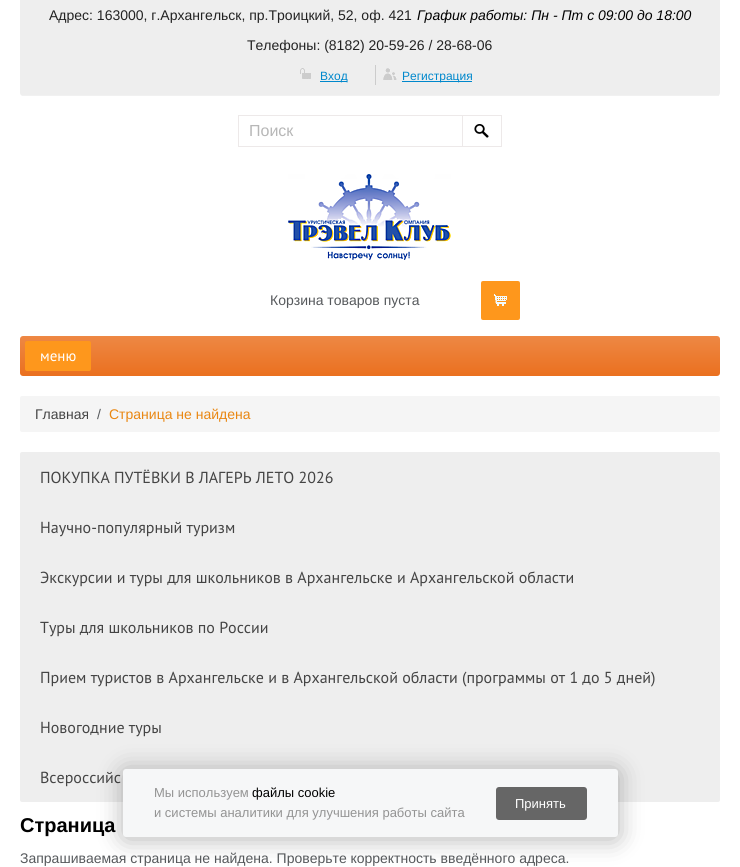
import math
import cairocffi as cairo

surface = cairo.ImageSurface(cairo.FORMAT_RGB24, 740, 867)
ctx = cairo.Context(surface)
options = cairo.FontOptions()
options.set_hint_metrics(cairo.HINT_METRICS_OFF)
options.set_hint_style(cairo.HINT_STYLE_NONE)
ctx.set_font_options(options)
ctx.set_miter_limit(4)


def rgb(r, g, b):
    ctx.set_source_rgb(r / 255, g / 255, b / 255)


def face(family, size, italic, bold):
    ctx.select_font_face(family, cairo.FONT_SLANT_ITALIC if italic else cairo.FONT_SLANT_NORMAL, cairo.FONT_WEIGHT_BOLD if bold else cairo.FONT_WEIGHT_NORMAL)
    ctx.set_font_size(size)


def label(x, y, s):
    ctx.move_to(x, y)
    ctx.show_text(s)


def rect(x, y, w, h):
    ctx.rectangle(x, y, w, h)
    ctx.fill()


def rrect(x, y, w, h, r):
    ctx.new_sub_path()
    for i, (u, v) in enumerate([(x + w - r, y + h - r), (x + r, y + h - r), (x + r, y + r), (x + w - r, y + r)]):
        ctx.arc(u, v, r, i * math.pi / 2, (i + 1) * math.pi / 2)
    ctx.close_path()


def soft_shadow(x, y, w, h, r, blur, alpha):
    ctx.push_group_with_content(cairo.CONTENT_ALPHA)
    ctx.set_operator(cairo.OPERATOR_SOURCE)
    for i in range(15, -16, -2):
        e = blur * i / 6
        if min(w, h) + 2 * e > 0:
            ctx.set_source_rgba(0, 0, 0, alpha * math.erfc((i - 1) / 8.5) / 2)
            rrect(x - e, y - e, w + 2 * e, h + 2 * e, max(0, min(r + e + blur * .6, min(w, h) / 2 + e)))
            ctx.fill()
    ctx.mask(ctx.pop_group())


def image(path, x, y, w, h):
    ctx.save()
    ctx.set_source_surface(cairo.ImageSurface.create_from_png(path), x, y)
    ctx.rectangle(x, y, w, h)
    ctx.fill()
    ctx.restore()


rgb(255, 255, 255)
ctx.paint()
rgb(238, 238, 238)
ctx.new_path()
ctx.move_to(20, 0)
ctx.line_to(720, 0)
ctx.line_to(720, 93)
ctx.curve_to(720, 94.5, 718.5, 96, 717, 96)
ctx.line_to(23, 96)
ctx.curve_to(21.5, 96, 20, 94.5, 20, 93)
ctx.close_path()
ctx.fill()
rgb(241, 241, 241)
rect(22, 95, 697, 1)
face('Liberation Sans', 14, 0, 0)
rgb(34, 34, 34)
label(49, 20, 'Адрес: 163000, г.Архангельск, пр.Троицкий, 52, оф. 421')
face('Liberation Sans', 14, 1, 0)
rgb(0, 0, 0)
label(417, 20, 'График работы: Пн - Пт с 09:00 до 18:00')
face('Liberation Sans', 14, 0, 0)
rgb(34, 34, 34)
label(247, 50, 'Телефоны: (8182) 20-59-26 / 28-68-06')
rgb(204, 204, 204)
rect(375, 65, 1, 20)
image('image0.png', 300, 68, 11, 11)
rgb(0, 136, 204)
rect(320, 81, 27, 1)
face('Liberation Sans', 12, 0, 0)
label(320, 80, 'Вход')
image('image1.png', 383, 68, 14, 12)
rect(402, 81, 70, 1)
label(402, 80, 'Регистрация')
ctx.rectangle(238.5, 115.5, 224, 31)
rgb(237, 233, 233)
ctx.set_line_width(1)
ctx.stroke()
face('Liberation Sans', 16, 0, 0)
rgb(183, 183, 183)
label(249, 136, 'Поиск')
image('image2.png', 474, 124, 15, 14)
rgb(237, 233, 233)
rect(462, 115, 40, 1)
rect(501, 115, 1, 32)
rect(462, 146, 40, 1)
image('image3.png', 288, 174, 163, 87)
face('Liberation Sans', 14, 0, 0)
rgb(86, 89, 92)
label(270, 305, 'Корзина товаров пуста')
image('image4.png', 481, 281, 39, 39)
gradient = cairo.LinearGradient(370, 376, 370, 336)
gradient.add_color_stop_rgba(0, 0.918, 0.439, 0.122, 1)
gradient.add_color_stop_rgba(1, 0.933, 0.533, 0.267, 1)
ctx.set_source(gradient)
rrect(20, 336, 700, 40, 3)
ctx.fill()
rgb(254, 151, 28)
rrect(25, 341, 66, 30, 2)
ctx.fill()
face('PT Sans', 15, 0, 0)
rgb(255, 255, 255)
label(40, 361, 'меню')
rgb(245, 245, 245)
rrect(20, 396, 700, 36, 2)
ctx.fill()
face('Liberation Sans', 14, 0, 0)
rgb(68, 68, 68)
label(35, 419, 'Главная')
rgb(86, 89, 92)
label(97, 419, '/')
rgb(233, 135, 18)
label(109, 419, 'Страница не найдена')
rgb(238, 238, 238)
rrect(20, 452, 700, 350, 2)
ctx.fill()
face('PT Sans', 16, 0, 0)
rgb(68, 68, 68)
label(40, 483, 'ПОКУПКА ПУТЁВКИ В ЛАГЕРЬ ЛЕТО 2026')
label(40, 533, 'Научно-популярный туризм')
label(40, 583, 'Экскурсии и туры для школьников в Архангельске и Архангельской области')
label(40, 633, 'Туры для школьников по России')
label(40, 683, 'Прием туристов в Архангельске и в Архангельской области (программы от 1 до 5 дней)')
label(40, 733, 'Новогодние туры')
label(40, 783, 'Всероссийс')
face('Liberation Sans', 20, 0, 1)
rgb(0, 0, 0)
label(20, 832, 'Страница')
face('Liberation Sans', 14, 0, 0)
rgb(86, 89, 92)
label(20, 863, 'Запрашиваемая страница не найдена. Проверьте корректность введённого адреса.')
rgb(0, 0, 0)
soft_shadow(123, 771, 495, 68, 3, 12.5, 0.3)
rgb(246, 247, 248)
rrect(123, 769, 495, 68, 3)
ctx.fill()
face('Liberation Sans', 13, 0, 0)
rgb(147, 147, 147)
label(154, 797, 'Мы используем')
rgb(0, 0, 0)
label(252, 797, 'файлы cookie')
rgb(147, 147, 147)
label(154, 817, 'и системы аналитики для улучшения работы сайта')
rgb(102, 102, 102)
rrect(496, 787, 91, 33, 3)
ctx.fill()
rgb(255, 255, 255)
label(515, 808, 'Принять')
surface.write_to_png('render.png')
